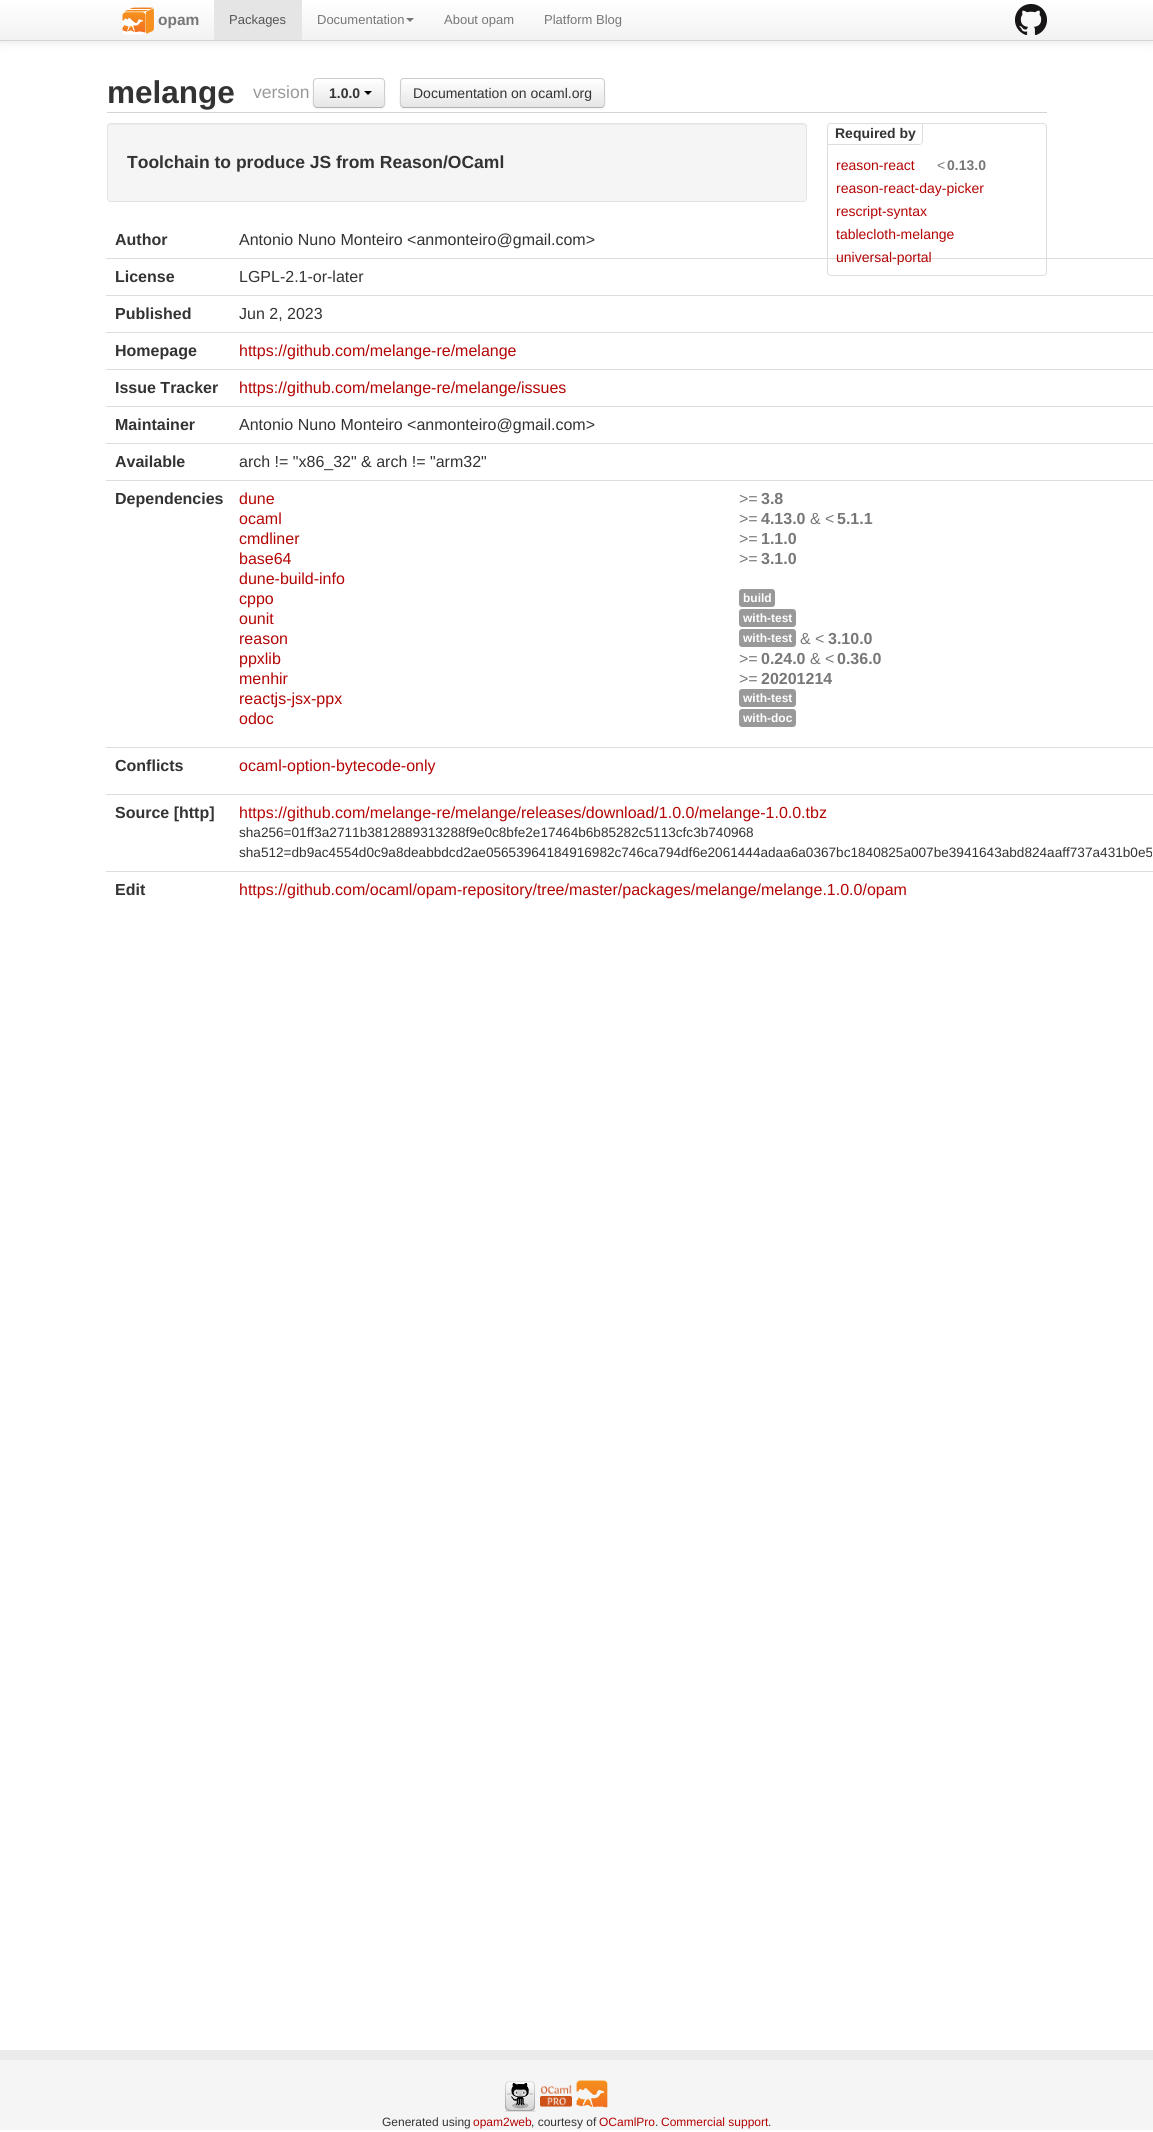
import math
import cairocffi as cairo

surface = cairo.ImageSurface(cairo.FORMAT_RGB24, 1153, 2132)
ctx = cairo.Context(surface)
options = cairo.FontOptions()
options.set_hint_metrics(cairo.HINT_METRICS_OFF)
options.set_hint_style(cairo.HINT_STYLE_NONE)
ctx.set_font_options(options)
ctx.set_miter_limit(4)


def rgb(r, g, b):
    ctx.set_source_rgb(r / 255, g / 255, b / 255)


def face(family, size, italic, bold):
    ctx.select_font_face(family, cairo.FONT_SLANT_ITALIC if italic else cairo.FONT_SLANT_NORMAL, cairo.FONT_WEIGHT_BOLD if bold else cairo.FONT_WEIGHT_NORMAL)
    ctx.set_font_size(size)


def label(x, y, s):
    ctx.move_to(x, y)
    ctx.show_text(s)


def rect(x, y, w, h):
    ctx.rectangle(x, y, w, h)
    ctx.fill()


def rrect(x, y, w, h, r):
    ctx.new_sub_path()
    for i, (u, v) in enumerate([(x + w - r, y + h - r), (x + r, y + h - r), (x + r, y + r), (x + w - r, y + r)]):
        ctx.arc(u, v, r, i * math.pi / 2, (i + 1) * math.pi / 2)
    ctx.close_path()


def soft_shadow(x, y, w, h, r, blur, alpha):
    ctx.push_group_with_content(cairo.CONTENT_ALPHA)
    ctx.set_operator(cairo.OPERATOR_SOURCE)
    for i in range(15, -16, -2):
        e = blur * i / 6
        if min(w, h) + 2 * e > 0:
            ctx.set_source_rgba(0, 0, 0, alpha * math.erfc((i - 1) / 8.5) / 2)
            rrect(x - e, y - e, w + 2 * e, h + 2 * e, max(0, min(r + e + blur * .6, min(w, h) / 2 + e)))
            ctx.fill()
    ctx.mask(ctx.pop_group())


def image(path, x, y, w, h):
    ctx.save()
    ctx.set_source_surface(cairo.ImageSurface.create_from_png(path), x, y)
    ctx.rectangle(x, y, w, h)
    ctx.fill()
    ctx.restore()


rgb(255, 255, 255)
ctx.paint()
rgb(0, 0, 0)
soft_shadow(0, 1, 1153, 41, 0, 5, 0.1)
gradient = cairo.LinearGradient(577, 0, 577, 40)
gradient.add_color_stop_rgba(0, 1, 1, 1, 1)
gradient.add_color_stop_rgba(1, 0.949, 0.949, 0.949, 1)
ctx.set_source(gradient)
rect(0, 0, 1153, 40)
rgb(212, 212, 212)
rect(0, 40, 1153, 1)
image('image0.png', 122, 7, 32, 28)
face('Liberation Sans', 15.5, 0, 1)
rgb(119, 119, 119)
label(158, 25, 'opam')
rgb(229, 229, 229)
rect(214, 0, 88, 40)
face('Liberation Sans', 13, 0, 0)
rgb(85, 85, 85)
label(229, 24, 'Packages')
rgb(119, 119, 119)
label(317, 24, 'Documentation')
ctx.new_path()
ctx.move_to(406, 18)
ctx.line_to(414, 18)
ctx.line_to(410, 22)
ctx.close_path()
ctx.fill()
label(444, 24, 'About opam')
label(544, 24, 'Platform Blog')
image('image1.png', 1015, 4, 32, 31)
rgb(211, 211, 211)
rect(107, 112, 940, 1)
face('Liberation Sans', 31.5, 0, 1)
rgb(51, 51, 51)
label(107, 103, 'melange')
face('Liberation Sans', 17.5, 0, 0)
rgb(153, 153, 153)
label(253, 98, 'version')
rgb(0, 0, 0)
soft_shadow(313, 79, 72, 30, 4, 1, 0.05)
ctx.save()
rrect(313, 78, 72, 30, 4)
ctx.clip()
gradient = cairo.LinearGradient(349, 79, 349, 107)
gradient.add_color_stop_rgba(0, 1, 1, 1, 1)
gradient.add_color_stop_rgba(1, 0.902, 0.902, 0.902, 1)
ctx.set_source(gradient)
rect(313, 79, 72, 28)
ctx.restore()
ctx.new_path()
ctx.move_to(383.5, 106.5)
ctx.line_to(381.5, 107.5)
ctx.line_to(316.5, 107.5)
ctx.line_to(314.5, 106.5)
rgb(179, 179, 179)
ctx.set_line_width(1)
ctx.stroke()
ctx.new_path()
ctx.move_to(314.5, 106.5)
ctx.curve_to(312.5, 104.5, 313.5, 96, 313.5, 93)
ctx.curve_to(313.5, 76.5, 311, 78.5, 327.5, 78.5)
ctx.line_to(370.5, 78.5)
ctx.curve_to(387, 78.5, 384.5, 76.5, 384.5, 93)
ctx.curve_to(384.5, 96, 385.5, 104.5, 383.5, 106.5)
rgb(204, 204, 204)
ctx.stroke()
face('Liberation Sans', 14, 0, 1)
rgb(51, 51, 51)
label(329, 98, '1.0.0')
rgb(0, 0, 0)
ctx.new_path()
ctx.move_to(364, 91)
ctx.line_to(372, 91)
ctx.line_to(368, 95)
ctx.close_path()
ctx.fill()
rgb(0, 0, 0)
soft_shadow(400, 79, 205, 30, 4, 1, 0.05)
ctx.save()
rrect(400, 78, 205, 30, 4)
ctx.clip()
gradient = cairo.LinearGradient(503, 79, 503, 107)
gradient.add_color_stop_rgba(0, 1, 1, 1, 1)
gradient.add_color_stop_rgba(1, 0.902, 0.902, 0.902, 1)
ctx.set_source(gradient)
rect(400, 79, 205, 28)
ctx.restore()
ctx.new_path()
ctx.move_to(603.5, 106.5)
ctx.curve_to(603, 107, 602, 107.5, 601, 107.5)
ctx.line_to(404, 107.5)
ctx.curve_to(403, 107.5, 402, 107, 401.5, 106.5)
rgb(179, 179, 179)
ctx.stroke()
ctx.new_path()
ctx.move_to(401.5, 106.5)
ctx.curve_to(399.5, 104.5, 400.5, 96, 400.5, 93)
ctx.line_to(400.5, 85.5)
ctx.curve_to(400.5, 83, 400, 78.5, 404, 78.5)
ctx.line_to(601, 78.5)
ctx.curve_to(605, 78.5, 604.5, 83, 604.5, 85.5)
ctx.line_to(604.5, 93)
ctx.curve_to(604.5, 96, 605.5, 104.5, 603.5, 106.5)
rgb(204, 204, 204)
ctx.stroke()
face('Liberation Sans', 14, 0, 0)
rgb(51, 51, 51)
label(413, 98, 'Documentation on ocaml.org')
rgb(221, 221, 221)
rect(106, 258, 1047, 1)
rrect(827.5, 123.5, 219, 152, 3.5)
ctx.stroke()
ctx.new_path()
ctx.move_to(923, 124)
ctx.line_to(923, 141)
ctx.curve_to(923, 143, 921, 145, 919, 145)
ctx.line_to(828, 145)
ctx.line_to(828, 144)
ctx.line_to(919, 144)
ctx.curve_to(921, 144, 922, 143, 922, 141)
ctx.line_to(922, 124)
ctx.close_path()
ctx.fill()
face('Liberation Sans', 14, 0, 1)
rgb(51, 51, 51)
label(835, 138, 'Required by')
face('Liberation Sans', 14, 0, 0)
rgb(180, 4, 4)
label(836, 170, 'reason-react')
rgb(119, 119, 119)
label(937, 170, '<')
face('Liberation Sans', 14, 0, 1)
label(947, 170, '0.13.0')
face('Liberation Sans', 14, 0, 0)
rgb(180, 4, 4)
label(836, 193, 'reason-react-day-picker')
label(836, 216, 'rescript-syntax')
label(836, 239, 'tablecloth-melange')
label(836, 262, 'universal-portal')
rgb(245, 245, 245)
rrect(107, 123, 700, 79, 4)
ctx.fill()
rgb(233, 233, 233)
ctx.new_path()
ctx.move_to(111, 125)
ctx.line_to(803, 125)
ctx.curve_to(805, 125, 806, 126, 806, 128)
ctx.curve_to(806, 126, 805, 124, 803, 124)
ctx.line_to(111, 124)
ctx.curve_to(109, 124, 108, 126, 108, 128)
ctx.curve_to(108, 126, 109, 125, 111, 125)
ctx.close_path()
ctx.fill()
rrect(107.5, 123.5, 699, 78, 3.5)
rgb(227, 227, 227)
ctx.stroke()
face('Liberation Sans', 17.5, 0, 1)
rgb(51, 51, 51)
label(127, 168, 'Toolchain to produce JS from Reason/OCaml')
face('Liberation Sans', 16, 0, 1)
label(115, 245, 'Author')
face('Liberation Sans', 16, 0, 0)
label(239, 245, 'Antonio Nuno Monteiro <anmonteiro@gmail.com>')
face('Liberation Sans', 16, 0, 1)
label(115, 282, 'License')
face('Liberation Sans', 16, 0, 0)
label(239, 282, 'LGPL-2.1-or-later')
face('Liberation Sans', 16, 0, 1)
label(115, 319, 'Published')
rgb(221, 221, 221)
rect(106, 295, 1047, 1)
face('Liberation Sans', 16, 0, 0)
rgb(51, 51, 51)
label(239, 319, 'Jun 2, 2023')
face('Liberation Sans', 16, 0, 1)
label(115, 356, 'Homepage')
rgb(221, 221, 221)
rect(106, 332, 1047, 1)
face('Liberation Sans', 16, 0, 0)
rgb(180, 4, 4)
label(239, 356, 'https://github.com/melange-re/melange')
face('Liberation Sans', 16, 0, 1)
rgb(51, 51, 51)
label(115, 393, 'Issue Tracker')
rgb(221, 221, 221)
rect(106, 369, 1047, 1)
face('Liberation Sans', 16, 0, 0)
rgb(180, 4, 4)
label(239, 393, 'https://github.com/melange-re/melange/issues')
face('Liberation Sans', 16, 0, 1)
rgb(51, 51, 51)
label(115, 430, 'Maintainer')
rgb(221, 221, 221)
rect(106, 406, 1047, 1)
face('Liberation Sans', 16, 0, 0)
rgb(51, 51, 51)
label(239, 430, 'Antonio Nuno Monteiro <anmonteiro@gmail.com>')
face('Liberation Sans', 16, 0, 1)
label(115, 467, 'Available')
rgb(221, 221, 221)
rect(106, 443, 1047, 1)
face('Liberation Sans', 16, 0, 0)
rgb(51, 51, 51)
label(239, 467, 'arch != "x86_32" & arch != "arm32"')
face('Liberation Sans', 16, 0, 1)
label(115, 504, 'Dependencies')
rgb(221, 221, 221)
rect(106, 480, 1047, 1)
face('Liberation Sans', 16, 0, 0)
rgb(180, 4, 4)
label(239, 504, 'dune')
rgb(119, 119, 119)
label(739, 504, '>=')
face('Liberation Sans', 16, 0, 1)
label(761, 504, '3.8')
face('Liberation Sans', 16, 0, 0)
rgb(180, 4, 4)
label(239, 524, 'ocaml')
rgb(119, 119, 119)
label(739, 524, '>=')
face('Liberation Sans', 16, 0, 1)
label(761, 524, '4.13.0')
face('Liberation Sans', 16, 0, 0)
label(810, 524, '& <')
face('Liberation Sans', 16, 0, 1)
label(837, 524, '5.1.1')
face('Liberation Sans', 16, 0, 0)
rgb(180, 4, 4)
label(239, 544, 'cmdliner')
rgb(119, 119, 119)
label(739, 544, '>=')
face('Liberation Sans', 16, 0, 1)
label(761, 544, '1.1.0')
face('Liberation Sans', 16, 0, 0)
rgb(180, 4, 4)
label(239, 564, 'base64')
rgb(119, 119, 119)
label(739, 564, '>=')
face('Liberation Sans', 16, 0, 1)
label(761, 564, '3.1.0')
face('Liberation Sans', 16, 0, 0)
rgb(180, 4, 4)
label(239, 584, 'dune-build-info')
label(239, 604, 'cppo')
rgb(153, 153, 153)
rrect(739, 589, 36, 18, 3)
ctx.fill()
face('Liberation Sans', 12, 0, 1)
rgb(255, 255, 255)
label(743, 602, 'build')
face('Liberation Sans', 16, 0, 0)
rgb(180, 4, 4)
label(239, 624, 'ounit')
rgb(153, 153, 153)
rrect(739, 609, 57, 18, 3)
ctx.fill()
face('Liberation Sans', 12, 0, 1)
rgb(255, 255, 255)
label(743, 622, 'with-test')
face('Liberation Sans', 16, 0, 0)
rgb(180, 4, 4)
label(239, 644, 'reason')
rgb(153, 153, 153)
rrect(739, 629, 57, 18, 3)
ctx.fill()
face('Liberation Sans', 12, 0, 1)
rgb(255, 255, 255)
label(743, 642, 'with-test')
face('Liberation Sans', 16, 0, 0)
rgb(119, 119, 119)
label(800, 644, '& <')
face('Liberation Sans', 16, 0, 1)
label(828, 644, '3.10.0')
face('Liberation Sans', 16, 0, 0)
rgb(180, 4, 4)
label(239, 664, 'ppxlib')
rgb(119, 119, 119)
label(739, 664, '>=')
face('Liberation Sans', 16, 0, 1)
label(761, 664, '0.24.0')
face('Liberation Sans', 16, 0, 0)
label(810, 664, '& <')
face('Liberation Sans', 16, 0, 1)
label(837, 664, '0.36.0')
face('Liberation Sans', 16, 0, 0)
rgb(180, 4, 4)
label(239, 684, 'menhir')
rgb(119, 119, 119)
label(739, 684, '>=')
face('Liberation Sans', 16, 0, 1)
label(761, 684, '20201214')
face('Liberation Sans', 16, 0, 0)
rgb(180, 4, 4)
label(239, 704, 'reactjs-jsx-ppx')
rgb(153, 153, 153)
rrect(739, 689, 57, 18, 3)
ctx.fill()
face('Liberation Sans', 12, 0, 1)
rgb(255, 255, 255)
label(743, 702, 'with-test')
face('Liberation Sans', 16, 0, 0)
rgb(180, 4, 4)
label(239, 724, 'odoc')
rgb(153, 153, 153)
rrect(739, 709, 57, 18, 3)
ctx.fill()
face('Liberation Sans', 12, 0, 1)
rgb(255, 255, 255)
label(743, 722, 'with-doc')
face('Liberation Sans', 16, 0, 1)
rgb(51, 51, 51)
label(115, 771, 'Conflicts')
rgb(221, 221, 221)
rect(106, 747, 1047, 1)
face('Liberation Sans', 16, 0, 0)
rgb(180, 4, 4)
label(239, 771, 'ocaml-option-bytecode-only')
face('Liberation Sans', 16, 0, 1)
rgb(51, 51, 51)
label(115, 818, 'Source [http]')
rgb(221, 221, 221)
rect(106, 794, 1047, 1)
face('Liberation Sans', 16, 0, 0)
rgb(180, 4, 4)
label(239, 818, 'https://github.com/melange-re/melange/releases/download/1.0.0/melange-1.0.0.tbz')
face('Liberation Sans', 13.6, 0, 0)
rgb(51, 51, 51)
label(239, 837, 'sha256=01ff3a2711b3812889313288f9e0c8bfe2e17464b6b85282c5113cfc3b740968')
label(239, 857, 'sha512=db9ac4554d0c9a8deabbdcd2ae05653964184916982c746ca794df6e2061444adaa6a0367bc1840825a007be3941643abd824aaff737a431b0e5')
face('Liberation Sans', 16, 0, 1)
label(115, 895, 'Edit')
rgb(221, 221, 221)
rect(106, 871, 1047, 1)
face('Liberation Sans', 16, 0, 0)
rgb(180, 4, 4)
label(239, 895, 'https://github.com/ocaml/opam-repository/tree/master/packages/melange/melange.1.0.0/opam')
rgb(245, 245, 245)
rect(0, 2060, 1153, 70)
rgb(235, 235, 235)
rect(0, 2050, 1153, 10)
image('image2.png', 505, 2081, 31, 31)
image('image3.png', 540, 2085, 32, 22)
image('image4.png', 576, 2080, 32, 28)
face('Liberation Sans', 12, 0, 0)
rgb(51, 51, 51)
label(382, 2126, 'Generated using')
rgb(180, 4, 4)
label(473, 2126, 'opam2web')
rgb(51, 51, 51)
label(531, 2126, ', courtesy of')
rgb(180, 4, 4)
label(599, 2126, 'OCamlPro')
rgb(51, 51, 51)
label(655, 2126, '.')
rgb(180, 4, 4)
label(661, 2126, 'Commercial support')
rgb(51, 51, 51)
label(768, 2126, '.')
surface.write_to_png('render.png')
